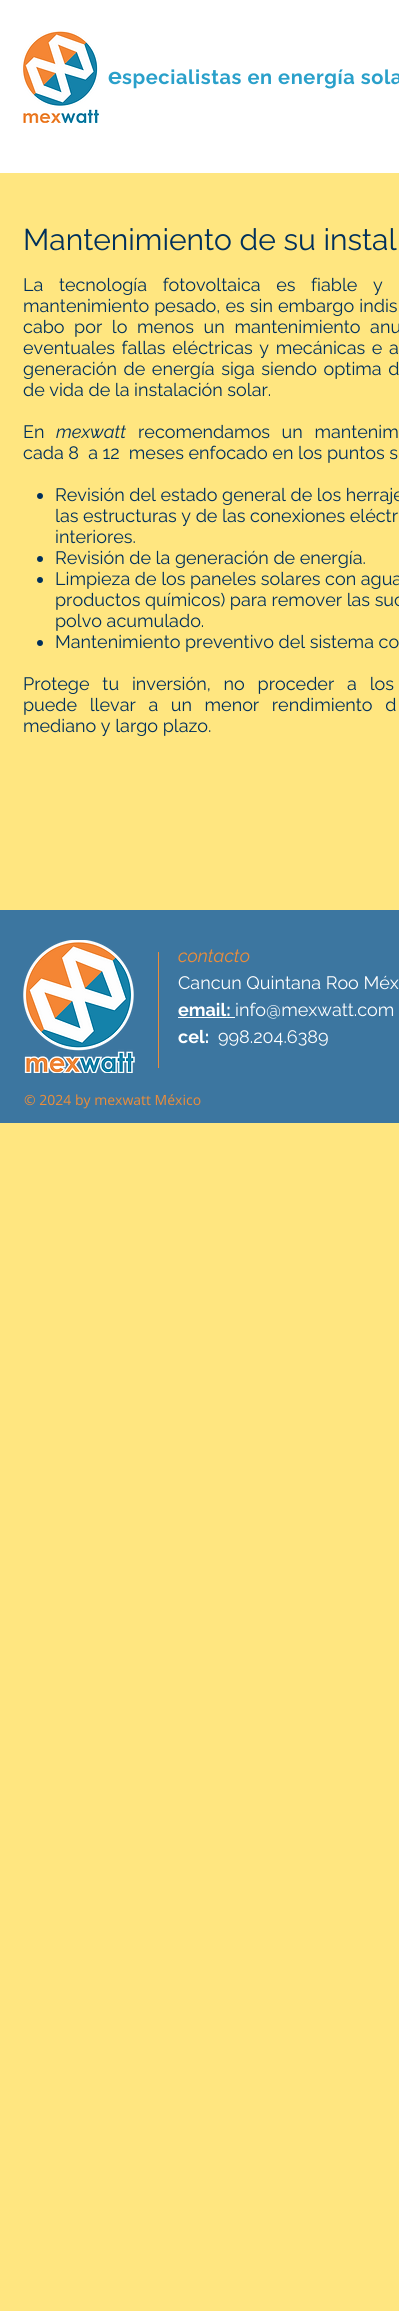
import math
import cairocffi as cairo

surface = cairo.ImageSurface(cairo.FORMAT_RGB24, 399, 2311)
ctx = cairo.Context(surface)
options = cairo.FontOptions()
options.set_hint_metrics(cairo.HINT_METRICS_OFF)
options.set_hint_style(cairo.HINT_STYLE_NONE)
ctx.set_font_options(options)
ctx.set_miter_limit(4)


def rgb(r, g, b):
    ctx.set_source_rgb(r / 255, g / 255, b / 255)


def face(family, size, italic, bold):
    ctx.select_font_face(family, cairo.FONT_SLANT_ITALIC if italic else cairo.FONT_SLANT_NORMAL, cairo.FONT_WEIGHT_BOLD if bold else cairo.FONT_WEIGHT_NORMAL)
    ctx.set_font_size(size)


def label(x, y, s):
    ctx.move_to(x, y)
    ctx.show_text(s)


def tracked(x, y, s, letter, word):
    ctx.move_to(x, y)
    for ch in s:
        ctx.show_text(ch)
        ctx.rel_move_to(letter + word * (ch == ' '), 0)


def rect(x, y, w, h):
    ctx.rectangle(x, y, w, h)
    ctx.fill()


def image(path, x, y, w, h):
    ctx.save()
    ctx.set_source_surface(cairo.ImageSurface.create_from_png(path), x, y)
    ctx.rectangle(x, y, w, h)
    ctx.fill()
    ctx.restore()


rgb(255, 230, 128)
ctx.paint()
rgb(255, 255, 255)
rect(0, 0, 399, 173)
image('image0.png', 21, 31, 79, 92)
face('Raleway', 23, 0, 1)
rgb(42, 160, 202)
tracked(108, 84, 'e', 1, 0)
face('Raleway', 20, 0, 1)
tracked(122, 84, 'specialistas en energía sola', 0.6, 0)
face('Raleway', 30, 0, 0)
rgb(0, 48, 91)
label(23, 250, 'Mantenimiento de su instal')
face('Raleway', 18, 0, 0)
tracked(23, 291, 'La tecnología fotovoltaica es fiable y', 0, 11)
tracked(23, 312, 'mantenimiento pesado, es sin embargo indis', 0, 0.5)
tracked(23, 333, 'cabo por lo menos un mantenimiento anu', 0, 5)
tracked(23, 354, 'eventuales fallas eléctricas y mecánicas e a', 0, 2)
tracked(23, 375, 'generación de energía siga siendo optima d', 0, 2)
label(23, 396, 'de vida de la instalación solar.')
label(23, 438, 'En')
face('Raleway', 18, 1, 0)
label(56, 438, 'mexwatt')
face('Raleway', 18, 0, 0)
tracked(138, 438, 'recomendamos un mantenim', 0, 7)
label(23, 459, 'cada 8  a 12  meses enfocado en los puntos s')
ctx.new_path()
ctx.arc(40, 496, 3, 0, 2 * math.pi)
ctx.fill()
label(55, 501, 'Revisión del estado general de los herraje')
label(55, 522, 'las estructuras y de las conexiones eléctr')
label(55, 543, 'interiores.')
ctx.new_path()
ctx.arc(40, 559, 3, 0, 2 * math.pi)
ctx.fill()
label(55, 564, 'Revisión de la generación de energía.')
ctx.new_path()
ctx.arc(40, 580, 3, 0, 2 * math.pi)
ctx.fill()
label(55, 585, 'Limpieza de los paneles solares con agua')
label(55, 606, 'productos químicos) para remover las suc')
label(55, 627, 'polvo acumulado.')
ctx.new_path()
ctx.arc(40, 643, 3, 0, 2 * math.pi)
ctx.fill()
label(55, 648, 'Mantenimiento preventivo del sistema co')
tracked(23, 690, 'Protege tu inversión, no proceder a los', 0, 8.25)
tracked(23, 711, 'puede llevar a un menor rendimiento d', 0, 8)
label(23, 732, 'mediano y largo plazo.')
rgb(60, 118, 160)
rect(0, 910, 399, 213)
image('image1.png', 23, 940, 112, 133)
rgb(237, 141, 57)
rect(158, 952, 1, 116)
face('Raleway', 18, 1, 0)
label(178, 962, 'contacto')
face('Raleway', 18, 0, 0)
rgb(255, 255, 255)
label(178, 989, 'Cancun Quintana Roo Méx')
face('Raleway', 18, 0, 1)
label(178, 1016, 'email:')
face('Raleway', 18, 0, 0)
label(235, 1016, 'info@mexwatt.com')
rect(178, 1017, 57, 1)
face('Raleway', 18, 0, 1)
label(178, 1043, 'cel:')
face('Raleway', 18, 0, 0)
label(218, 1043, '998.204.6389')
face('Open Sans', 14, 0, 0)
rgb(237, 141, 57)
label(24, 1105, '© 2024 by mexwatt México')
surface.write_to_png('render.png')
